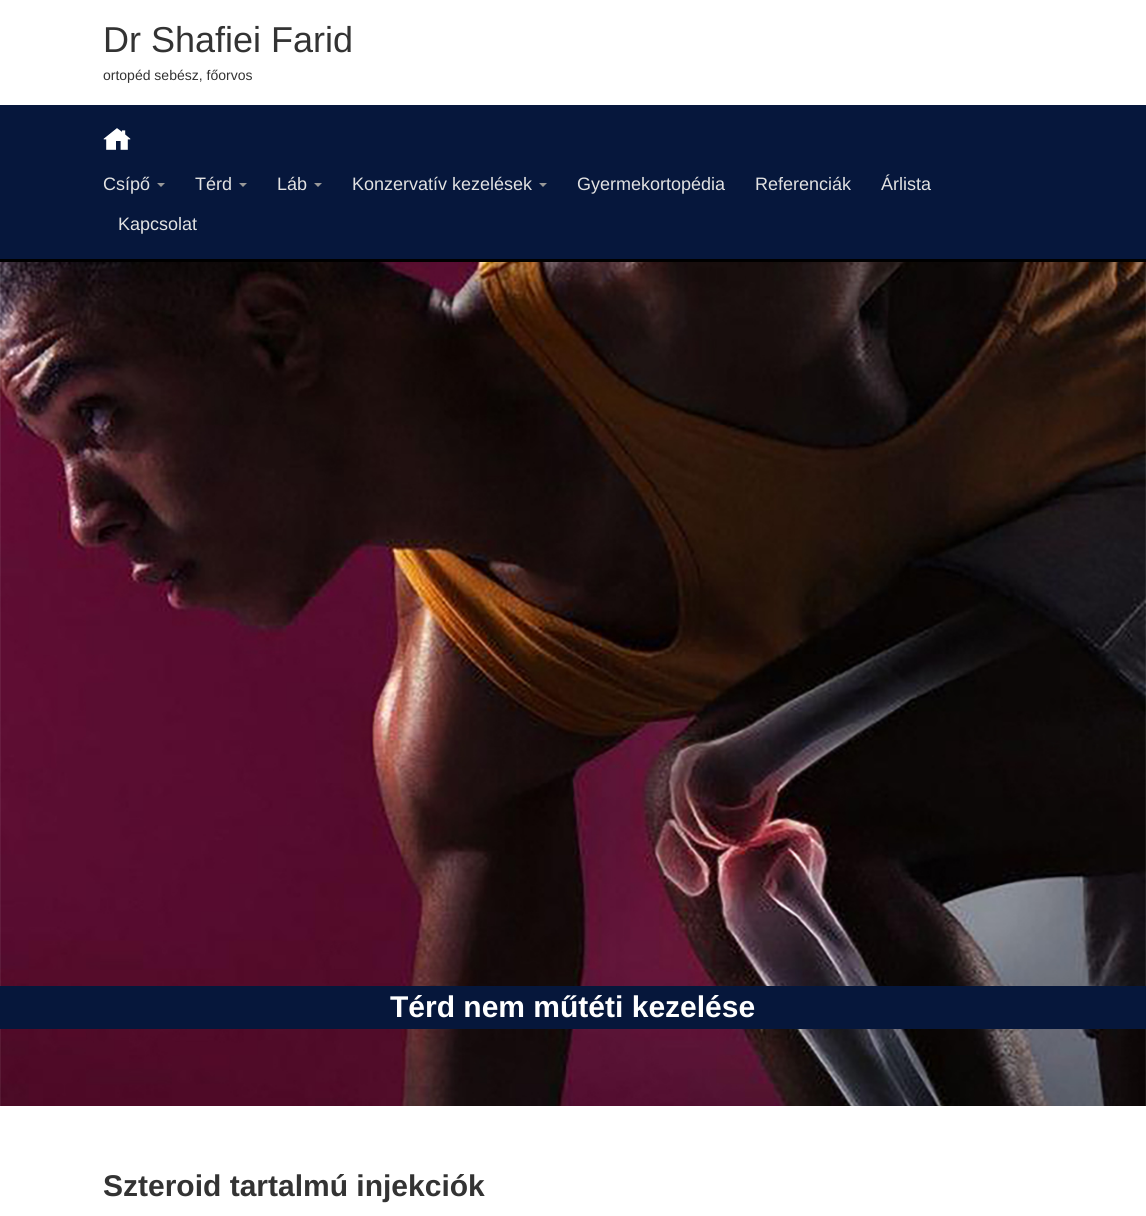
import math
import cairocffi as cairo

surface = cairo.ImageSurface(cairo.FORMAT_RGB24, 1146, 1216)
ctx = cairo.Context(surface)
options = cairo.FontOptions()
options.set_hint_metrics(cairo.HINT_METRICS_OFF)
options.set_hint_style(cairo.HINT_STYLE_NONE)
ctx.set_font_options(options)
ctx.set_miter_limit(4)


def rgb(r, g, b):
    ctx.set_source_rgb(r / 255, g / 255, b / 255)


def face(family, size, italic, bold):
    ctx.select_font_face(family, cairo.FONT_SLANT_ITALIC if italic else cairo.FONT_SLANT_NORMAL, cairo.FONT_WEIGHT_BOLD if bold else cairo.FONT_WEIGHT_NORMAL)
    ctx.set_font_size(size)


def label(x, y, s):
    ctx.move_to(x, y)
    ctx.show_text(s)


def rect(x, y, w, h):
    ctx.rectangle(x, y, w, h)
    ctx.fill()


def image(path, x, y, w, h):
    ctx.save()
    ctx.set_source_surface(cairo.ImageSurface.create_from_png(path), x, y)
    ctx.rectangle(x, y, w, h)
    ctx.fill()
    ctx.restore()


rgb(255, 255, 255)
ctx.paint()
face('Liberation Sans', 36, 0, 0)
rgb(51, 51, 51)
label(103, 52, 'Dr Shafiei Farid')
face('Liberation Sans', 14, 0, 0)
label(103, 80, 'ortopéd sebész, főorvos')
rgb(6, 23, 60)
rect(0, 105, 1146, 154)
image('image0.png', 103, 128, 28, 22)
face('Liberation Sans', 18, 0, 0)
rgb(226, 226, 226)
label(103, 190, 'Csípő')
rgb(153, 153, 153)
ctx.new_path()
ctx.move_to(157, 183)
ctx.line_to(165, 183)
ctx.line_to(161, 187)
ctx.close_path()
ctx.fill()
rgb(226, 226, 226)
label(195, 190, 'Térd')
rgb(153, 153, 153)
ctx.new_path()
ctx.move_to(239, 183)
ctx.line_to(247, 183)
ctx.line_to(243, 187)
ctx.close_path()
ctx.fill()
rgb(226, 226, 226)
label(277, 190, 'Láb')
rgb(153, 153, 153)
ctx.new_path()
ctx.move_to(314, 183)
ctx.line_to(322, 183)
ctx.line_to(318, 187)
ctx.close_path()
ctx.fill()
rgb(226, 226, 226)
label(352, 190, 'Konzervatív kezelések')
rgb(153, 153, 153)
ctx.new_path()
ctx.move_to(539, 183)
ctx.line_to(547, 183)
ctx.line_to(543, 187)
ctx.close_path()
ctx.fill()
rgb(226, 226, 226)
label(577, 190, 'Gyermekortopédia')
label(755, 190, 'Referenciák')
label(881, 190, 'Árlista')
label(118, 230, 'Kapcsolat')
rgb(0, 0, 0)
rect(0, 259, 1146, 3)
image('image1.png', 0, 262, 1146, 844)
rgb(6, 23, 59)
rect(0, 986, 1146, 43)
face('Liberation Sans', 30, 0, 1)
rgb(255, 255, 255)
label(390, 1017, 'Térd nem műtéti kezelése')
rgb(51, 51, 51)
label(103, 1196, 'Szteroid tartalmú injekciók')
surface.write_to_png('render.png')
